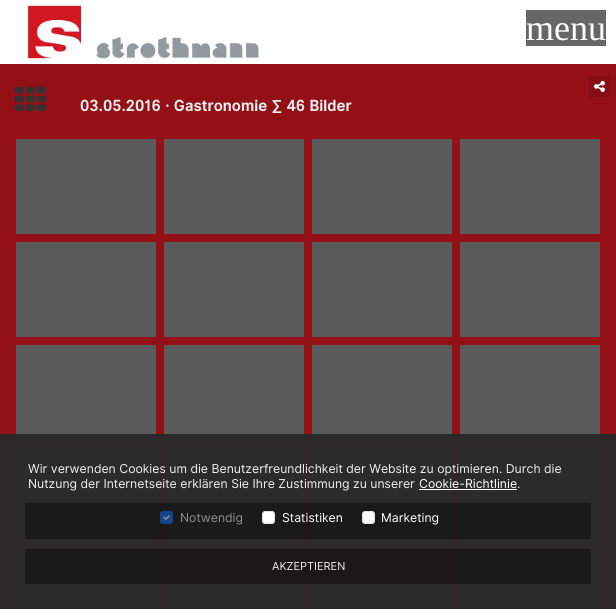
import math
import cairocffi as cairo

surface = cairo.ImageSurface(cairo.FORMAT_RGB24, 616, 609)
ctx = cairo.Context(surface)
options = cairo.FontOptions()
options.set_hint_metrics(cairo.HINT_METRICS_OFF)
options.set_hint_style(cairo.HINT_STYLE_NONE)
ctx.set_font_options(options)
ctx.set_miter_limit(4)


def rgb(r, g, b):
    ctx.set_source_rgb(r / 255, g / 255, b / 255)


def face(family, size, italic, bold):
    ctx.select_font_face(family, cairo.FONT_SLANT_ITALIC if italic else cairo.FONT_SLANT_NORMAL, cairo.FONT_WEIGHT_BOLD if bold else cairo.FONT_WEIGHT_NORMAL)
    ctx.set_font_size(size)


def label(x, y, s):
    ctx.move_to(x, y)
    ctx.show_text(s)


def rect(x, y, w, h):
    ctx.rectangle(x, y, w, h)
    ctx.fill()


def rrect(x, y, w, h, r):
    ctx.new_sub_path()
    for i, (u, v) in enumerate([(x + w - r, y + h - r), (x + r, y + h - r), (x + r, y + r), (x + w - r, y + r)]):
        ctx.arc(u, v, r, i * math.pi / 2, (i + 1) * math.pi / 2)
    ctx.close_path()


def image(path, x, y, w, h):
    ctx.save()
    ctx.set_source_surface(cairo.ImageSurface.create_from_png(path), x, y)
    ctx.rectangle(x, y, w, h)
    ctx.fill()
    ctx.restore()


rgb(147, 16, 22)
ctx.paint()
rgb(46, 40, 40)
rect(0, 434, 616, 175)
rgb(28, 24, 24)
rect(25, 549, 566, 35)
rect(156, 503, 304, 36)
rgb(255, 255, 255)
rect(0, 0, 616, 64)
image('image0.png', 27, 5, 232, 54)
rgb(102, 102, 102)
rect(526, 10, 80, 36)
face('Liberation Serif', 36, 0, 0)
rgb(255, 255, 255)
label(526, 40, 'menu')
rgb(132, 14, 20)
rect(589, 76, 21, 21)
image('image1.png', 594, 81, 11, 11)
image('image2.png', 15, 86, 31, 25)
face('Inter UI', 15.4, 0, 1)
rgb(239, 239, 239)
label(80, 111, '03.05.2016 · Gastronomie ∑ 46 Bilder')
rgb(90, 90, 91)
rect(16, 139, 140, 95)
rect(164, 139, 140, 95)
rect(312, 139, 140, 95)
rect(460, 139, 140, 95)
rect(16, 242, 140, 95)
rect(164, 242, 140, 95)
rect(312, 242, 140, 95)
rect(460, 242, 140, 95)
rect(16, 345, 140, 89)
rgb(43, 43, 44)
rect(16, 434, 140, 6)
rgb(90, 90, 91)
rect(164, 345, 140, 89)
rgb(43, 43, 44)
rect(164, 434, 140, 6)
rgb(90, 90, 91)
rect(312, 345, 140, 89)
rgb(43, 43, 44)
rect(312, 434, 140, 6)
rgb(90, 90, 91)
rect(460, 345, 140, 89)
rgb(43, 43, 44)
rect(460, 434, 140, 6)
rect(16, 448, 140, 95)
rgb(26, 26, 26)
rect(25, 503, 131, 36)
rgb(43, 43, 44)
rect(164, 448, 140, 95)
rgb(26, 26, 26)
rect(164, 503, 140, 36)
rgb(43, 43, 44)
rect(312, 448, 140, 95)
rgb(26, 26, 26)
rect(312, 503, 140, 36)
rgb(43, 43, 44)
rect(460, 448, 140, 95)
rgb(26, 26, 26)
rect(460, 503, 131, 36)
rgb(43, 43, 44)
rect(16, 551, 140, 58)
rgb(26, 26, 26)
rect(25, 551, 131, 33)
rgb(43, 43, 44)
rect(164, 584, 140, 25)
rect(312, 584, 140, 25)
rect(460, 551, 140, 58)
rgb(26, 26, 26)
rect(460, 551, 131, 33)
face('Inter UI', 12.3, 0, 0)
rgb(239, 239, 239)
label(28, 473, 'Wir verwenden Cookies um die Benutzerfreundlichkeit der Website zu optimieren. Durch die')
label(28, 488, 'Nutzung der Internetseite erklären Sie Ihre Zustimmung zu unserer')
rgb(255, 255, 255)
label(419, 488, 'Cookie-Richtlinie')
rect(419, 489, 98, 1)
rgb(239, 239, 239)
label(517, 488, '.')
rgb(20, 68, 139)
rrect(160, 511, 13, 13, 3)
ctx.fill()
ctx.new_path()
ctx.move_to(164, 517.5)
ctx.line_to(166, 519)
ctx.line_to(169, 516)
rgb(141, 140, 140)
ctx.set_line_width(1.6)
ctx.set_line_cap(cairo.LINE_CAP_ROUND)
ctx.set_line_join(cairo.LINE_JOIN_ROUND)
ctx.stroke()
rrect(160.5, 511.5, 12, 12, 2.5)
rgb(20, 68, 139)
ctx.set_line_width(1)
ctx.set_line_cap(cairo.LINE_CAP_BUTT)
ctx.set_line_join(cairo.LINE_JOIN_MITER)
ctx.stroke()
rgb(141, 141, 141)
label(180, 522, 'Notwendig')
rgb(255, 255, 255)
rrect(262.5, 511.5, 12, 12, 2.5)
ctx.fill_preserve()
rgb(222, 226, 230)
ctx.stroke()
rgb(255, 255, 255)
label(282, 522, 'Statistiken')
rrect(362.5, 511.5, 12, 12, 2.5)
ctx.fill_preserve()
rgb(222, 226, 230)
ctx.stroke()
rgb(255, 255, 255)
label(381, 522, 'Marketing')
face('Inter UI', 11, 0, 0)
rgb(239, 239, 239)
label(272, 570, 'AKZEPTIEREN')
surface.write_to_png('render.png')
